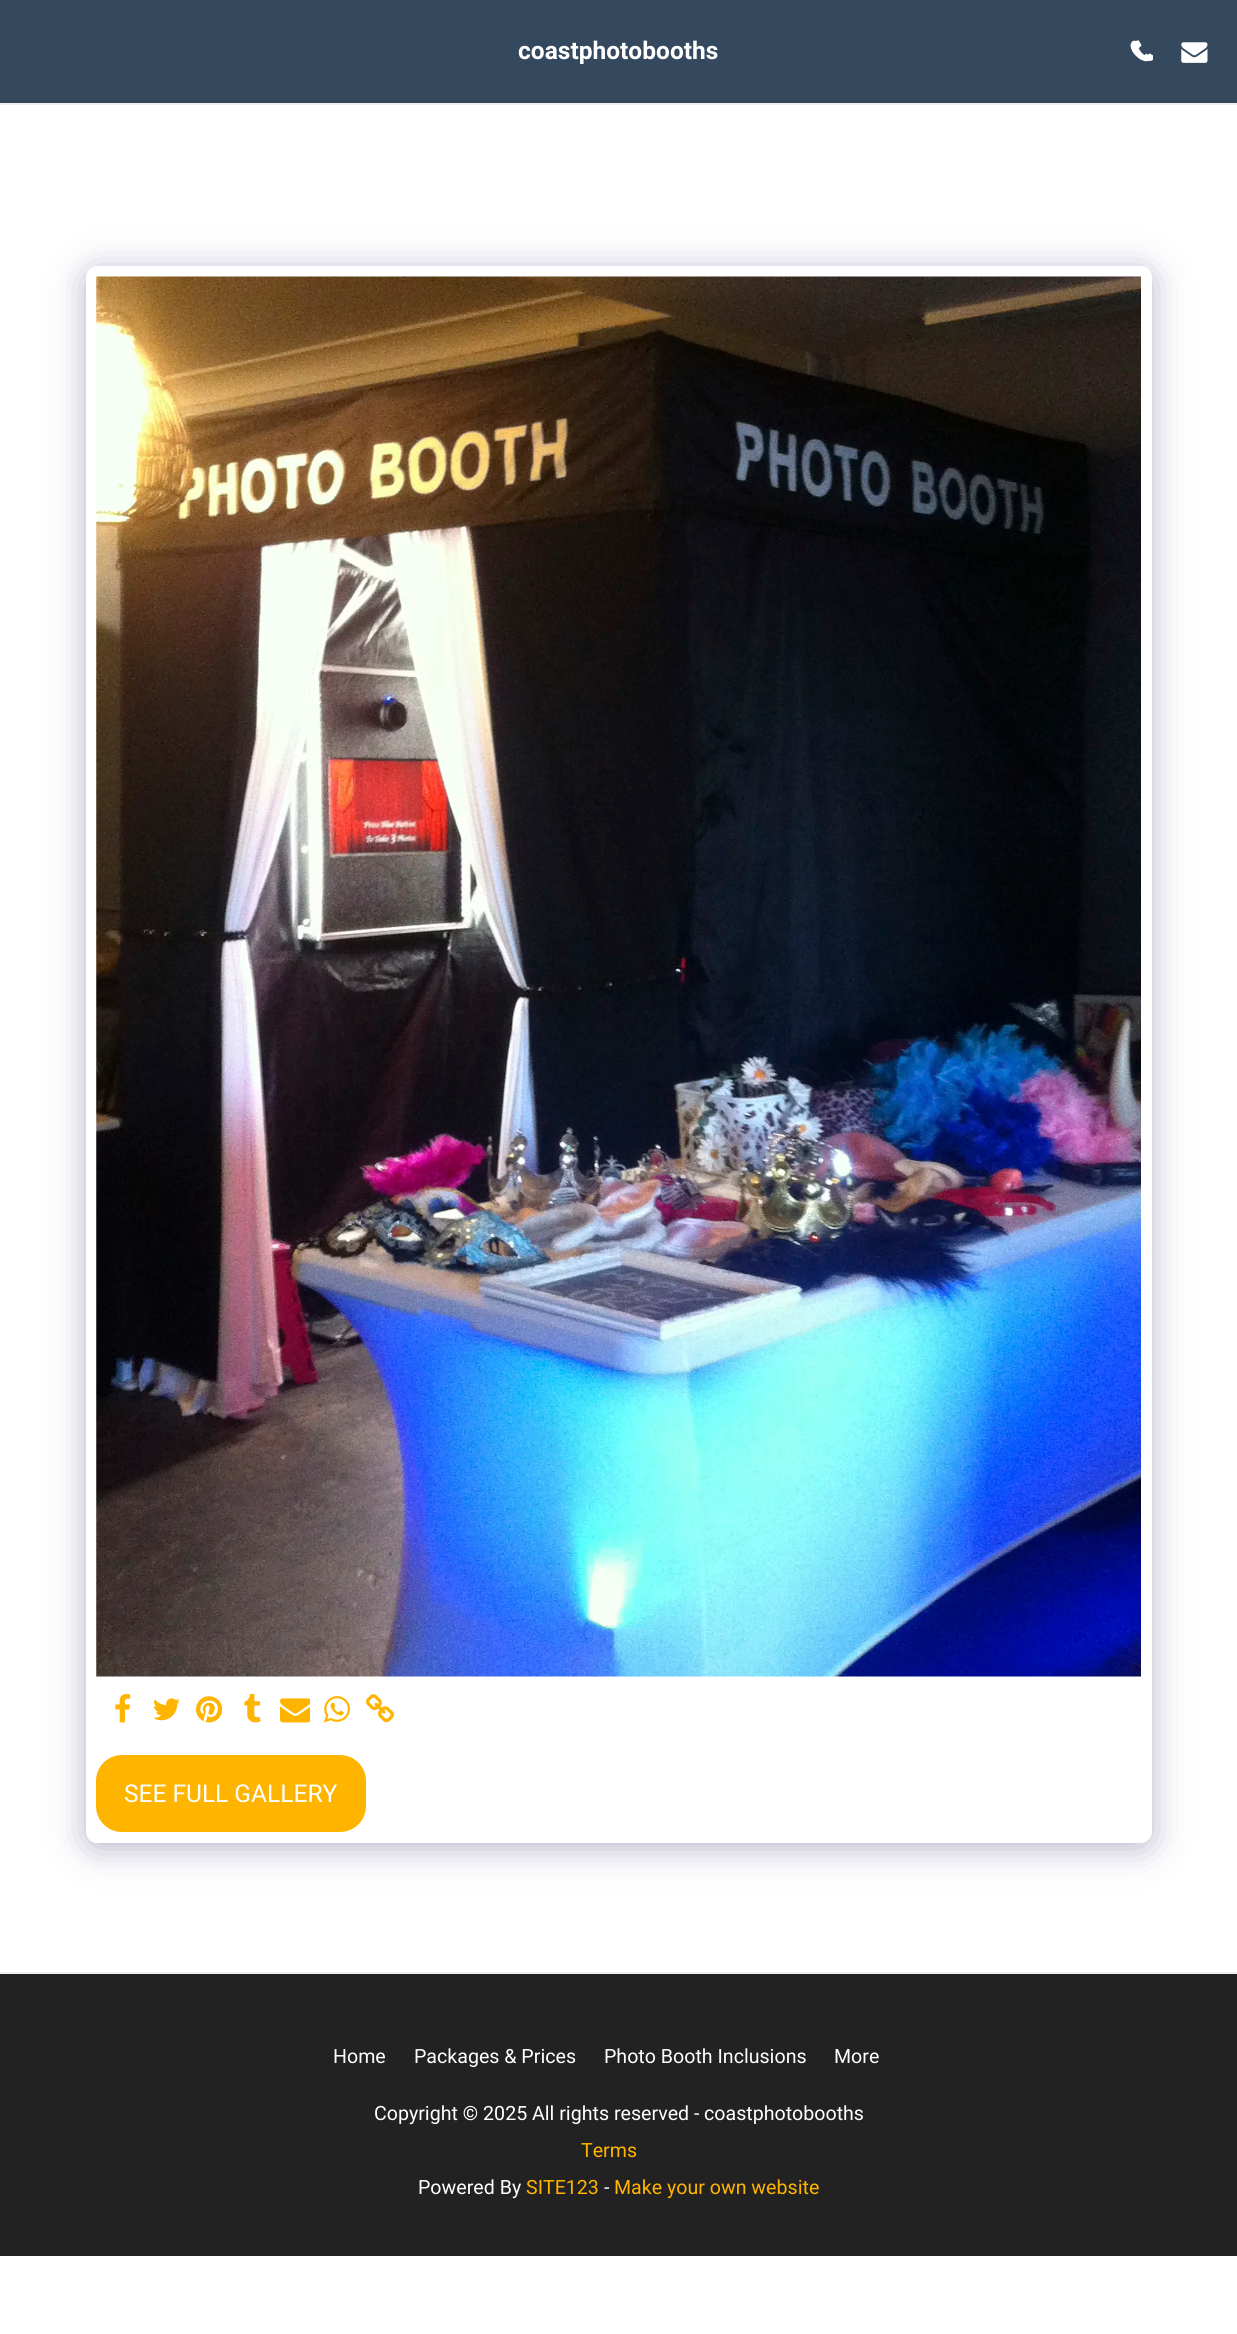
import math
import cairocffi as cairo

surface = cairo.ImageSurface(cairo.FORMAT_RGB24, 1237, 2334)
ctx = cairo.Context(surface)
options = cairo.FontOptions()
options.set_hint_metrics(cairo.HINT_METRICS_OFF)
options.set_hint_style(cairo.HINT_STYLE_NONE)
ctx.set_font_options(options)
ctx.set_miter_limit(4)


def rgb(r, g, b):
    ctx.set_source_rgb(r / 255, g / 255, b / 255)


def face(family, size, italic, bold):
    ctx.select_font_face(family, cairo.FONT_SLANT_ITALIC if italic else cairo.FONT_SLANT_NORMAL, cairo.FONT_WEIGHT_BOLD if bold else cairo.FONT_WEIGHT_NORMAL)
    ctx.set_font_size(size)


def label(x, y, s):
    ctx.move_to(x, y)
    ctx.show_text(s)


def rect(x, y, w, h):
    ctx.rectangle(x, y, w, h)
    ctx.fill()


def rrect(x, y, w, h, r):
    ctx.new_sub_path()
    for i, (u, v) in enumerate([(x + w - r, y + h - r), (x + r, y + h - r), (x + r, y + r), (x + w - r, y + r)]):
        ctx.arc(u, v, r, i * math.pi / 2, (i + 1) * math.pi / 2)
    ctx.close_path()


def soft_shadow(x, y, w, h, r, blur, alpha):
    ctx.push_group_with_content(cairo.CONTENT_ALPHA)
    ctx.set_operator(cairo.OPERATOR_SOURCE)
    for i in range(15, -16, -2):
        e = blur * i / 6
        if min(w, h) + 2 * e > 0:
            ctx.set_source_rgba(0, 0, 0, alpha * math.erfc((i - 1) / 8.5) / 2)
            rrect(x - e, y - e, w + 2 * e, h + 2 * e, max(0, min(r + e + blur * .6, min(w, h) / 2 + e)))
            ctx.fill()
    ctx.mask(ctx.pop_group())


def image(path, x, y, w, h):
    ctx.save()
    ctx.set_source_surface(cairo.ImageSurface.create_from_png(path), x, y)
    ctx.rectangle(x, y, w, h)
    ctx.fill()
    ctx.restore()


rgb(255, 255, 255)
ctx.paint()
rgb(52, 73, 94)
rect(0, 0, 1237, 103)
rgb(243, 238, 238)
rect(0, 103, 1237, 2)
face('Heebo', 24.5, 0, 1)
rgb(255, 255, 255)
label(518, 59, 'coastphotobooths')
image('image0.png', 1135, 40, 18, 21)
image('image1.png', 1130, 40, 19, 22)
image('image2.png', 1181, 42, 27, 21)
rgb(77, 63, 122)
soft_shadow(86, 271, 1066, 1577, 11, 17.5, 0.4)
rgb(255, 255, 255)
rrect(86, 266, 1066, 1577, 11)
ctx.fill()
image('image3.png', 96, 276, 1045, 1401)
image('image4.png', 115, 1694, 16, 29)
image('image5.png', 153, 1698, 27, 23)
image('image6.png', 196, 1696, 26, 27)
image('image7.png', 244, 1694, 17, 29)
image('image8.png', 280, 1698, 30, 25)
image('image9.png', 324, 1696, 26, 27)
image('image10.png', 366, 1694, 28, 29)
rgb(255, 180, 0)
rrect(97, 1756, 268, 75, 25)
ctx.fill_preserve()
ctx.stroke()
face('Heebo', 24.5, 0, 0)
rgb(255, 255, 255)
label(124, 1802, 'SEE FULL GALLERY')
rgb(243, 238, 238)
rect(0, 1972, 1237, 2)
rgb(34, 34, 34)
rect(0, 1974, 1237, 282)
face('Heebo', 19.6, 0, 0)
rgb(255, 255, 255)
label(333, 2063, 'Home')
label(414, 2063, 'Packages & Prices')
label(604, 2063, 'Photo Booth Inclusions')
label(834, 2063, 'More')
label(374, 2120, 'Copyright © 2025 All rights reserved -')
label(704, 2120, 'coastphotobooths')
rgb(255, 180, 0)
label(581, 2157, 'Terms')
rgb(255, 255, 255)
label(418, 2194, 'Powered By')
rgb(255, 180, 0)
label(526, 2194, 'SITE123')
rgb(255, 255, 255)
label(604, 2194, '-')
rgb(255, 180, 0)
label(614, 2194, 'Make your own website')
surface.write_to_png('render.png')
